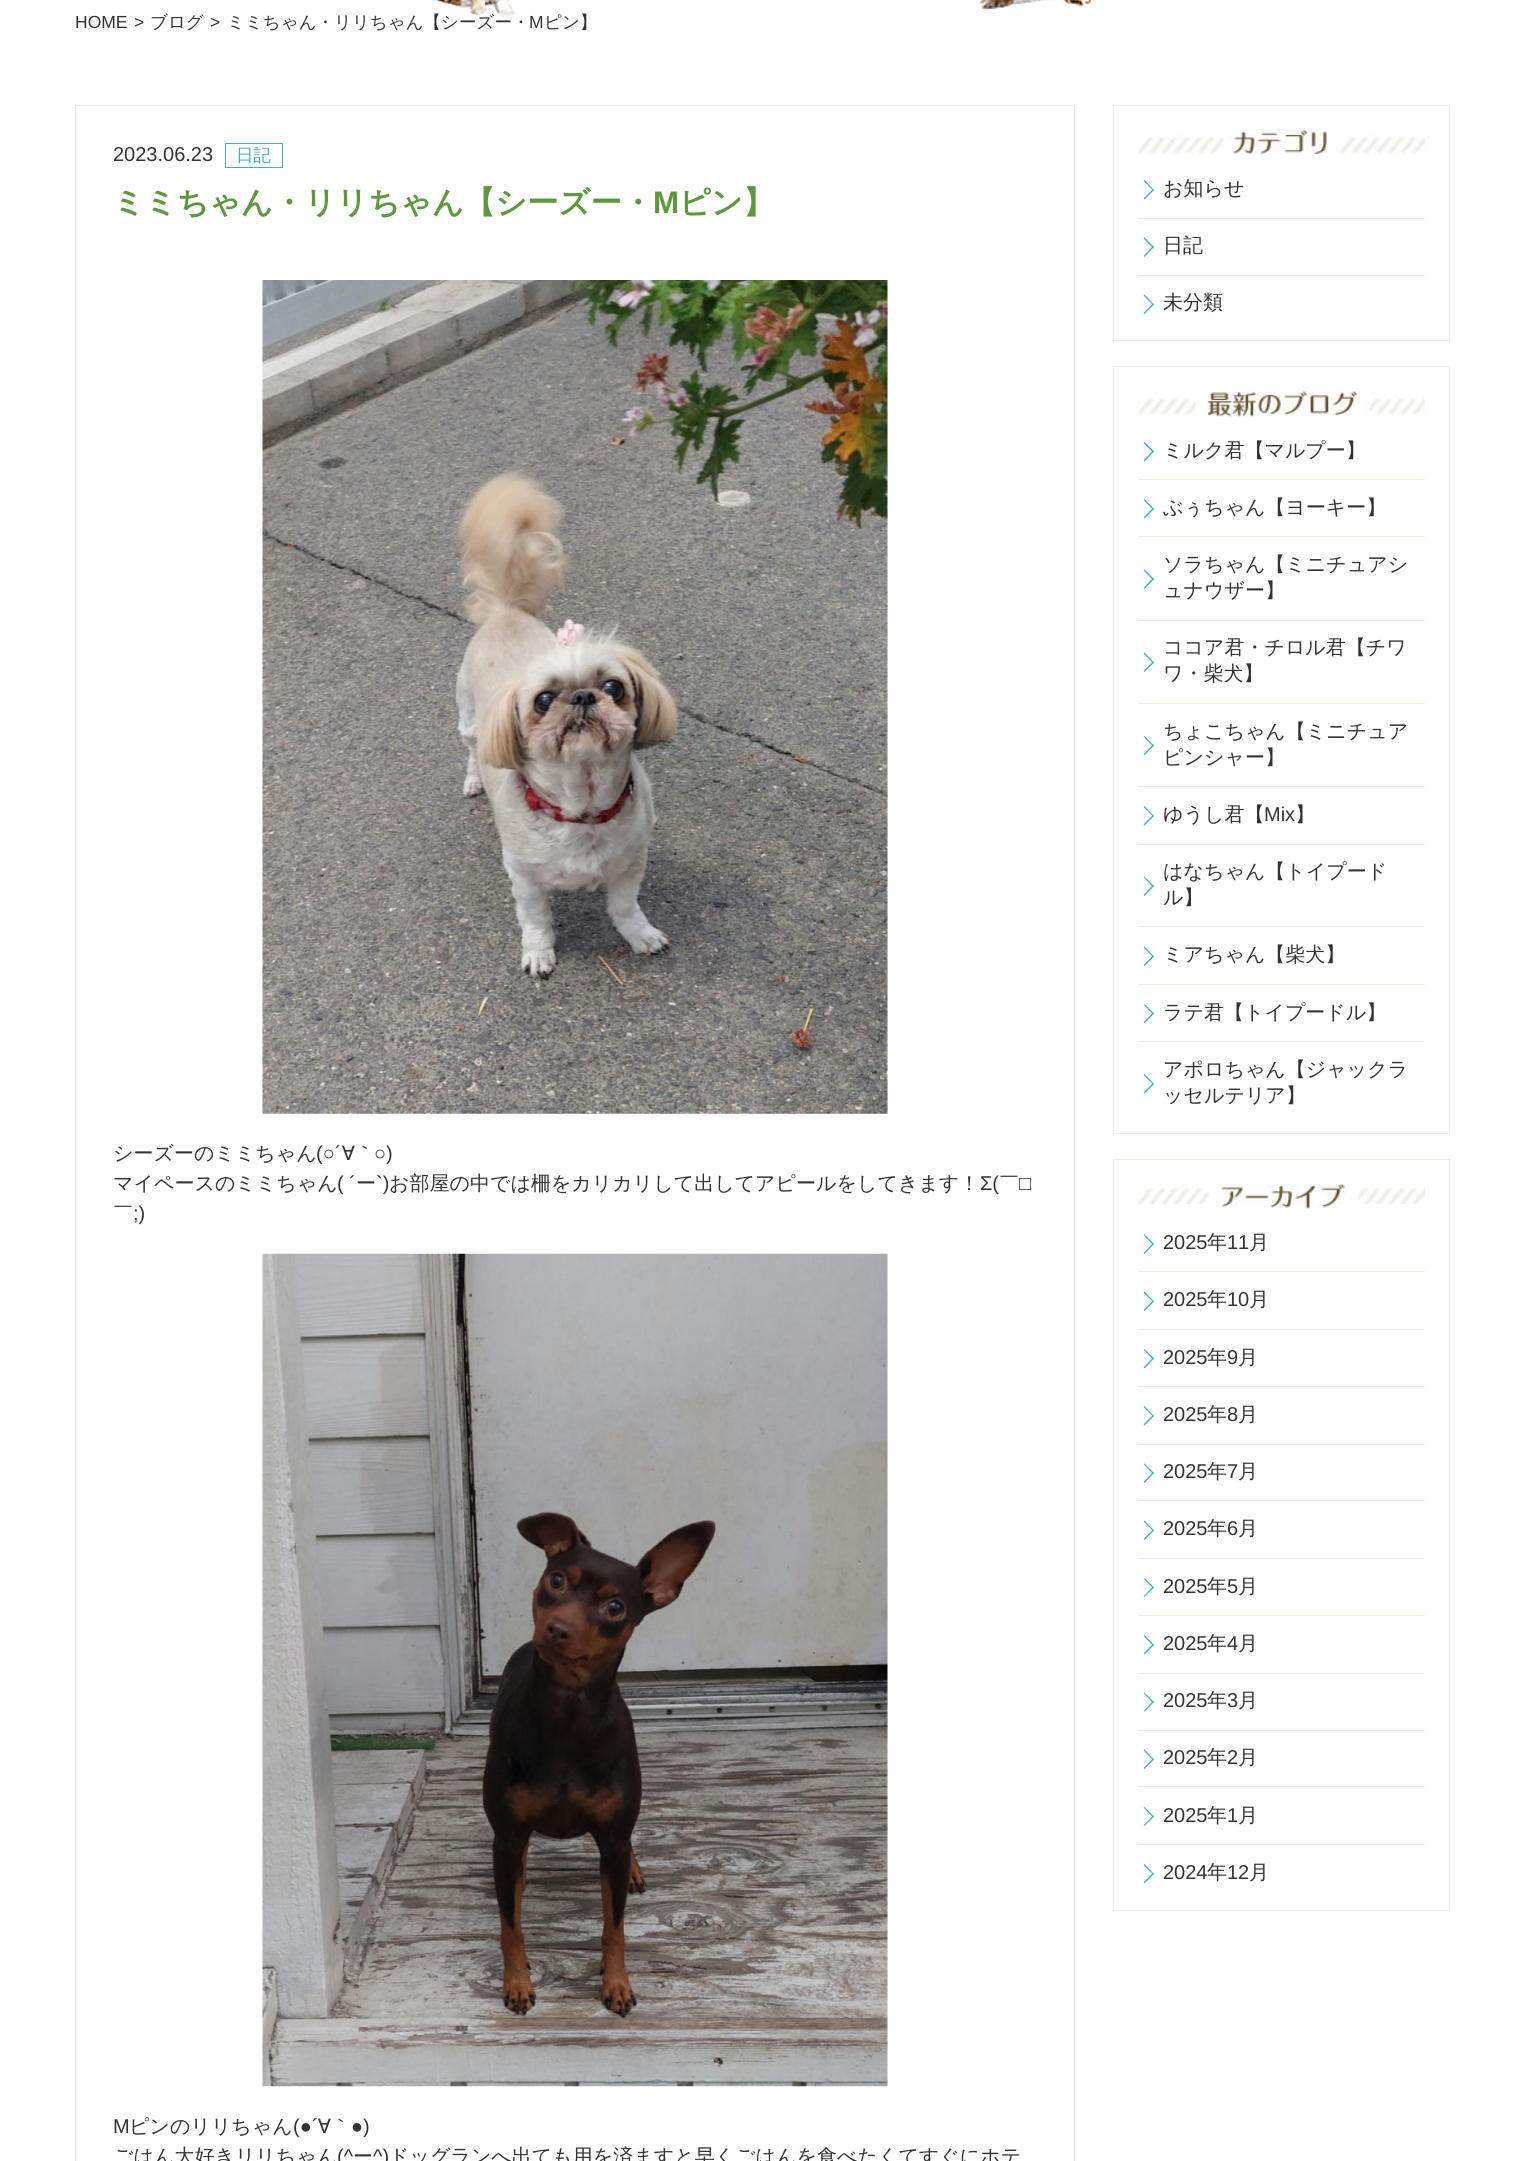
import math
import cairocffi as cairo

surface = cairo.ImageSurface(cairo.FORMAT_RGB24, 1525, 2161)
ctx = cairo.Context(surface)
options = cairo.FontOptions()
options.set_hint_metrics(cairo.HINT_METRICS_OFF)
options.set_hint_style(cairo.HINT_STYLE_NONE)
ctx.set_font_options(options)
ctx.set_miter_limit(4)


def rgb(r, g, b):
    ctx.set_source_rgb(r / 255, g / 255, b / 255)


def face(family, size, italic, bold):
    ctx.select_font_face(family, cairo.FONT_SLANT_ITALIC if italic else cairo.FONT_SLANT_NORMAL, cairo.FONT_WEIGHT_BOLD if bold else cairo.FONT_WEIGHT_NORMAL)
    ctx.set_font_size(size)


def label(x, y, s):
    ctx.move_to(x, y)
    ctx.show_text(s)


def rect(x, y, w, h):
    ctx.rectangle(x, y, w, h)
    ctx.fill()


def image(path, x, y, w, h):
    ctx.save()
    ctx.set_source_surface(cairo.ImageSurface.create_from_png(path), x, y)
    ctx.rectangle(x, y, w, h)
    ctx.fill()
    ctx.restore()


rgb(255, 255, 255)
ctx.paint()
face('WenQuanYi Zen Hei Medium', 17.5, 0, 0)
rgb(51, 51, 51)
label(227, 28, 'ミミちゃん・リリちゃん【シーズー・')
face('Liberation Sans', 17.5, 0, 0)
label(529, 28, 'M')
face('WenQuanYi Zen Hei Medium', 17.5, 0, 0)
label(544, 28, 'ピン】')
image('image0.png', 431, 0, 661, 18)
face('Liberation Sans', 17.5, 0, 0)
label(75, 28, 'HOME')
label(134, 28, '>')
face('WenQuanYi Zen Hei Medium', 17.5, 0, 0)
label(150, 28, 'ブログ')
face('Liberation Sans', 17.5, 0, 0)
label(210, 28, '>')
ctx.rectangle(75.5, 105.5, 999, 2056)
rgb(239, 237, 228)
ctx.set_line_width(1)
ctx.stroke()
face('Liberation Sans', 20, 0, 0)
rgb(51, 51, 51)
label(113, 161, '2023.06.23')
ctx.rectangle(225.5, 143.5, 57, 24)
rgb(64, 172, 199)
ctx.stroke()
face('WenQuanYi Zen Hei Medium', 17.5, 0, 0)
label(236, 161, '日記')
face('WenQuanYi Zen Hei', 31.25, 0, 1)
rgb(93, 151, 62)
label(113, 213, 'ミミちゃん・リリちゃん【シーズー・')
face('Liberation Sans', 31.25, 0, 1)
label(653, 213, 'M')
face('WenQuanYi Zen Hei', 31.25, 0, 1)
label(679, 213, 'ピン】')
image('image1.png', 262, 280, 626, 834)
face('WenQuanYi Zen Hei Medium', 20, 0, 0)
rgb(51, 51, 51)
label(113, 1160, 'シーズーのミミちゃん')
face('Liberation Sans', 20, 0, 0)
label(316, 1160, '(○´')
face('WenQuanYi Zen Hei Medium', 20, 0, 0)
label(342, 1160, '∀｀')
face('Liberation Sans', 20, 0, 0)
label(374, 1160, '○)')
face('WenQuanYi Zen Hei Medium', 20, 0, 0)
label(113, 1190, 'マイペースのミミちゃん')
face('Liberation Sans', 20, 0, 0)
label(337, 1190, '( ´')
label(376, 1190, '`)')
face('WenQuanYi Zen Hei Medium', 20, 0, 0)
label(389, 1190, 'お部屋の中では柵をカリカリして出してアピールをしてきます！')
face('Liberation Sans', 20, 0, 0)
label(980, 1190, 'Σ(')
face('WenQuanYi Zen Hei Medium', 20, 0, 0)
label(999, 1190, '￣')
label(356, 1190, 'ー')
face('Liberation Sans', 20, 0, 0)
label(1019, 1190, '□')
face('WenQuanYi Zen Hei Medium', 20, 0, 0)
label(113, 1220, '￣')
face('Liberation Sans', 20, 0, 0)
label(133, 1220, ';)')
image('image2.png', 262, 1253, 626, 834)
label(113, 2133, 'M')
face('WenQuanYi Zen Hei Medium', 20, 0, 0)
label(129, 2133, 'ピンのリリちゃん')
face('Liberation Sans', 20, 0, 0)
label(293, 2133, '(●´')
face('WenQuanYi Zen Hei Medium', 20, 0, 0)
label(318, 2133, '∀｀')
face('Liberation Sans', 20, 0, 0)
label(351, 2133, '●)')
face('WenQuanYi Zen Hei Medium', 20, 0, 0)
label(113, 2163, 'ごはん大好きリリちゃん')
face('Liberation Sans', 20, 0, 0)
label(337, 2163, '(^')
face('WenQuanYi Zen Hei Medium', 20, 0, 0)
label(353, 2163, 'ー')
face('Liberation Sans', 20, 0, 0)
label(373, 2163, '^)')
face('WenQuanYi Zen Hei Medium', 20, 0, 0)
label(389, 2163, 'ドッグランへ出ても用を済ますと早くごはんを食べたくてすぐにホテ')
ctx.rectangle(1113.5, 105.5, 336, 235)
rgb(239, 237, 228)
ctx.stroke()
image('image3.png', 1138, 130, 287, 24)
rect(1138, 218, 287, 1)
rgb(64, 172, 199)
ctx.new_path()
ctx.move_to(1144.5, 180)
ctx.line_to(1154, 190)
ctx.line_to(1153, 190.5)
ctx.line_to(1143.5, 181)
ctx.close_path()
ctx.fill()
ctx.new_path()
ctx.move_to(1153, 189)
ctx.line_to(1154, 190)
ctx.line_to(1144.5, 199.5)
ctx.line_to(1143.5, 198.5)
ctx.close_path()
ctx.fill()
rgb(51, 51, 51)
label(1163, 195, 'お知らせ')
rgb(239, 237, 228)
rect(1138, 275, 287, 1)
rgb(64, 172, 199)
ctx.new_path()
ctx.move_to(1144.5, 237.5)
ctx.line_to(1154, 247)
ctx.line_to(1153, 248)
ctx.line_to(1143.5, 238.5)
ctx.close_path()
ctx.fill()
ctx.new_path()
ctx.move_to(1153, 246)
ctx.line_to(1154, 247)
ctx.line_to(1144.5, 257)
ctx.line_to(1143.5, 256)
ctx.close_path()
ctx.fill()
rgb(51, 51, 51)
label(1163, 252, '日記')
rgb(64, 172, 199)
ctx.new_path()
ctx.move_to(1144.5, 294.5)
ctx.line_to(1154, 304.5)
ctx.line_to(1153, 305)
ctx.line_to(1143.5, 295.5)
ctx.close_path()
ctx.fill()
ctx.new_path()
ctx.move_to(1153, 303.5)
ctx.line_to(1154, 304.5)
ctx.line_to(1144.5, 314)
ctx.line_to(1143.5, 313)
ctx.close_path()
ctx.fill()
rgb(51, 51, 51)
label(1163, 309, '未分類')
ctx.rectangle(1113.5, 366.5, 336, 767)
rgb(239, 237, 228)
ctx.stroke()
image('image4.png', 1138, 391, 287, 26)
rect(1138, 479, 287, 1)
rgb(64, 172, 199)
ctx.new_path()
ctx.move_to(1144.5, 442)
ctx.line_to(1154, 451.5)
ctx.line_to(1153, 452.5)
ctx.line_to(1143.5, 443)
ctx.close_path()
ctx.fill()
ctx.new_path()
ctx.move_to(1153, 450.5)
ctx.line_to(1154, 451.5)
ctx.line_to(1144.5, 461.5)
ctx.line_to(1143.5, 460.5)
ctx.close_path()
ctx.fill()
rgb(51, 51, 51)
label(1163, 457, 'ミルク君【マルプー】')
rgb(239, 237, 228)
rect(1138, 536, 287, 1)
rgb(64, 172, 199)
ctx.new_path()
ctx.move_to(1144.5, 499)
ctx.line_to(1154, 509)
ctx.line_to(1153, 509.5)
ctx.line_to(1143.5, 500)
ctx.close_path()
ctx.fill()
ctx.new_path()
ctx.move_to(1153, 508)
ctx.line_to(1154, 509)
ctx.line_to(1144.5, 518.5)
ctx.line_to(1143.5, 517.5)
ctx.close_path()
ctx.fill()
rgb(51, 51, 51)
label(1163, 514, 'ぶぅちゃん【ヨーキー】')
rgb(239, 237, 228)
rect(1138, 620, 287, 1)
rgb(51, 51, 51)
label(1163, 571, 'ソラちゃん【ミニチュアシ')
rgb(64, 172, 199)
ctx.new_path()
ctx.move_to(1144.5, 569.5)
ctx.line_to(1154, 579)
ctx.line_to(1153, 580)
ctx.line_to(1143.5, 570.5)
ctx.close_path()
ctx.fill()
ctx.new_path()
ctx.move_to(1153, 578)
ctx.line_to(1154, 579)
ctx.line_to(1144.5, 589)
ctx.line_to(1143.5, 588)
ctx.close_path()
ctx.fill()
rgb(51, 51, 51)
label(1163, 597, 'ュナウザー】')
rgb(239, 237, 228)
rect(1138, 703, 287, 1)
rgb(51, 51, 51)
label(1163, 654, 'ココア君・チロル君【チワ')
rgb(64, 172, 199)
ctx.new_path()
ctx.move_to(1144.5, 652.5)
ctx.line_to(1154, 662.5)
ctx.line_to(1153, 663)
ctx.line_to(1143.5, 653.5)
ctx.close_path()
ctx.fill()
ctx.new_path()
ctx.move_to(1153, 661.5)
ctx.line_to(1154, 662.5)
ctx.line_to(1144.5, 672)
ctx.line_to(1143.5, 671)
ctx.close_path()
ctx.fill()
rgb(51, 51, 51)
label(1163, 680, 'ワ・柴犬】')
rgb(239, 237, 228)
rect(1138, 786, 287, 1)
rgb(51, 51, 51)
label(1163, 738, 'ちょこちゃん【ミニチュア')
rgb(64, 172, 199)
ctx.new_path()
ctx.move_to(1144.5, 736)
ctx.line_to(1154, 745.5)
ctx.line_to(1153, 746.5)
ctx.line_to(1143.5, 736.5)
ctx.close_path()
ctx.fill()
ctx.new_path()
ctx.move_to(1153, 744.5)
ctx.line_to(1154, 745.5)
ctx.line_to(1144.5, 755.5)
ctx.line_to(1143.5, 754.5)
ctx.close_path()
ctx.fill()
rgb(51, 51, 51)
label(1163, 764, 'ピンシャー】')
rgb(239, 237, 228)
rect(1138, 844, 287, 1)
rgb(64, 172, 199)
ctx.new_path()
ctx.move_to(1144.5, 806)
ctx.line_to(1154, 816)
ctx.line_to(1153, 816.5)
ctx.line_to(1143.5, 807)
ctx.close_path()
ctx.fill()
ctx.new_path()
ctx.move_to(1153, 815)
ctx.line_to(1154, 816)
ctx.line_to(1144.5, 825.5)
ctx.line_to(1143.5, 824.5)
ctx.close_path()
ctx.fill()
rgb(51, 51, 51)
label(1163, 821, 'ゆうし君【')
face('Liberation Sans', 20, 0, 0)
label(1264, 821, 'Mix')
face('WenQuanYi Zen Hei Medium', 20, 0, 0)
label(1295, 821, '】')
rgb(239, 237, 228)
rect(1138, 926, 287, 1)
rgb(51, 51, 51)
label(1163, 878, 'はなちゃん【トイプード')
rgb(64, 172, 199)
ctx.new_path()
ctx.move_to(1144.5, 876.5)
ctx.line_to(1154, 886)
ctx.line_to(1153, 887)
ctx.line_to(1143.5, 877)
ctx.close_path()
ctx.fill()
ctx.new_path()
ctx.move_to(1153, 885)
ctx.line_to(1154, 886)
ctx.line_to(1144.5, 896)
ctx.line_to(1143.5, 895)
ctx.close_path()
ctx.fill()
rgb(51, 51, 51)
label(1163, 904, 'ル】')
rgb(239, 237, 228)
rect(1138, 984, 287, 1)
rgb(64, 172, 199)
ctx.new_path()
ctx.move_to(1144.5, 946.5)
ctx.line_to(1154, 956.5)
ctx.line_to(1153, 957)
ctx.line_to(1143.5, 947.5)
ctx.close_path()
ctx.fill()
ctx.new_path()
ctx.move_to(1153, 955.5)
ctx.line_to(1154, 956.5)
ctx.line_to(1144.5, 966)
ctx.line_to(1143.5, 965)
ctx.close_path()
ctx.fill()
rgb(51, 51, 51)
label(1163, 961, 'ミアちゃん【柴犬】')
rgb(239, 237, 228)
rect(1138, 1041, 287, 1)
rgb(64, 172, 199)
ctx.new_path()
ctx.move_to(1144.5, 1004)
ctx.line_to(1154, 1013.5)
ctx.line_to(1153, 1014.5)
ctx.line_to(1143.5, 1004.5)
ctx.close_path()
ctx.fill()
ctx.new_path()
ctx.move_to(1153, 1012.5)
ctx.line_to(1154, 1013.5)
ctx.line_to(1144.5, 1023.5)
ctx.line_to(1143.5, 1022.5)
ctx.close_path()
ctx.fill()
rgb(51, 51, 51)
label(1163, 1019, 'ラテ君【トイプードル】')
label(1163, 1076, 'アポロちゃん【ジャックラ')
rgb(64, 172, 199)
ctx.new_path()
ctx.move_to(1144.5, 1074)
ctx.line_to(1154, 1084)
ctx.line_to(1153, 1084.5)
ctx.line_to(1143.5, 1075)
ctx.close_path()
ctx.fill()
ctx.new_path()
ctx.move_to(1153, 1083)
ctx.line_to(1154, 1084)
ctx.line_to(1144.5, 1093.5)
ctx.line_to(1143.5, 1092.5)
ctx.close_path()
ctx.fill()
rgb(51, 51, 51)
label(1163, 1102, 'ッセルテリア】')
ctx.rectangle(1113.5, 1159.5, 336, 751)
rgb(239, 237, 228)
ctx.stroke()
image('image5.png', 1137, 1183, 288, 26)
rect(1138, 1271, 287, 1)
rgb(64, 172, 199)
ctx.new_path()
ctx.move_to(1144.5, 1234.5)
ctx.line_to(1154, 1244)
ctx.line_to(1153, 1245)
ctx.line_to(1143.5, 1235)
ctx.close_path()
ctx.fill()
ctx.new_path()
ctx.move_to(1153, 1243)
ctx.line_to(1154, 1244)
ctx.line_to(1144.5, 1254)
ctx.line_to(1143.5, 1253)
ctx.close_path()
ctx.fill()
face('Liberation Sans', 20, 0, 0)
rgb(51, 51, 51)
label(1163, 1249, '2025')
face('WenQuanYi Zen Hei Medium', 20, 0, 0)
label(1207, 1249, '年')
face('Liberation Sans', 20, 0, 0)
label(1227, 1249, '11')
face('WenQuanYi Zen Hei Medium', 20, 0, 0)
label(1249, 1249, '月')
rgb(239, 237, 228)
rect(1138, 1329, 287, 1)
rgb(64, 172, 199)
ctx.new_path()
ctx.move_to(1144.5, 1291.5)
ctx.line_to(1154, 1301.5)
ctx.line_to(1153, 1302)
ctx.line_to(1143.5, 1292.5)
ctx.close_path()
ctx.fill()
ctx.new_path()
ctx.move_to(1153, 1300.5)
ctx.line_to(1154, 1301.5)
ctx.line_to(1144.5, 1311)
ctx.line_to(1143.5, 1310)
ctx.close_path()
ctx.fill()
face('Liberation Sans', 20, 0, 0)
rgb(51, 51, 51)
label(1163, 1306, '2025')
face('WenQuanYi Zen Hei Medium', 20, 0, 0)
label(1207, 1306, '年')
face('Liberation Sans', 20, 0, 0)
label(1227, 1306, '10')
face('WenQuanYi Zen Hei Medium', 20, 0, 0)
label(1249, 1306, '月')
rgb(239, 237, 228)
rect(1138, 1386, 287, 1)
rgb(64, 172, 199)
ctx.new_path()
ctx.move_to(1144.5, 1349)
ctx.line_to(1154, 1358.5)
ctx.line_to(1153, 1359.5)
ctx.line_to(1143.5, 1349.5)
ctx.close_path()
ctx.fill()
ctx.new_path()
ctx.move_to(1153, 1357.5)
ctx.line_to(1154, 1358.5)
ctx.line_to(1144.5, 1368.5)
ctx.line_to(1143.5, 1367.5)
ctx.close_path()
ctx.fill()
face('Liberation Sans', 20, 0, 0)
rgb(51, 51, 51)
label(1163, 1364, '2025')
face('WenQuanYi Zen Hei Medium', 20, 0, 0)
label(1207, 1364, '年')
face('Liberation Sans', 20, 0, 0)
label(1227, 1364, '9')
face('WenQuanYi Zen Hei Medium', 20, 0, 0)
label(1238, 1364, '月')
rgb(239, 237, 228)
rect(1138, 1444, 287, 1)
rgb(64, 172, 199)
ctx.new_path()
ctx.move_to(1144.5, 1406)
ctx.line_to(1154, 1416)
ctx.line_to(1153, 1416.5)
ctx.line_to(1143.5, 1407)
ctx.close_path()
ctx.fill()
ctx.new_path()
ctx.move_to(1153, 1415)
ctx.line_to(1154, 1416)
ctx.line_to(1144.5, 1425.5)
ctx.line_to(1143.5, 1424.5)
ctx.close_path()
ctx.fill()
face('Liberation Sans', 20, 0, 0)
rgb(51, 51, 51)
label(1163, 1421, '2025')
face('WenQuanYi Zen Hei Medium', 20, 0, 0)
label(1207, 1421, '年')
face('Liberation Sans', 20, 0, 0)
label(1227, 1421, '8')
face('WenQuanYi Zen Hei Medium', 20, 0, 0)
label(1238, 1421, '月')
rgb(239, 237, 228)
rect(1138, 1500, 287, 1)
rgb(64, 172, 199)
ctx.new_path()
ctx.move_to(1144.5, 1463.5)
ctx.line_to(1154, 1473)
ctx.line_to(1153, 1474)
ctx.line_to(1143.5, 1464)
ctx.close_path()
ctx.fill()
ctx.new_path()
ctx.move_to(1153, 1472)
ctx.line_to(1154, 1473)
ctx.line_to(1144.5, 1483)
ctx.line_to(1143.5, 1482)
ctx.close_path()
ctx.fill()
face('Liberation Sans', 20, 0, 0)
rgb(51, 51, 51)
label(1163, 1478, '2025')
face('WenQuanYi Zen Hei Medium', 20, 0, 0)
label(1207, 1478, '年')
face('Liberation Sans', 20, 0, 0)
label(1227, 1478, '7')
face('WenQuanYi Zen Hei Medium', 20, 0, 0)
label(1238, 1478, '月')
rgb(239, 237, 228)
rect(1138, 1558, 287, 1)
rgb(64, 172, 199)
ctx.new_path()
ctx.move_to(1144.5, 1520.5)
ctx.line_to(1154, 1530.5)
ctx.line_to(1153, 1531)
ctx.line_to(1143.5, 1521.5)
ctx.close_path()
ctx.fill()
ctx.new_path()
ctx.move_to(1153, 1529.5)
ctx.line_to(1154, 1530.5)
ctx.line_to(1144.5, 1540)
ctx.line_to(1143.5, 1539)
ctx.close_path()
ctx.fill()
face('Liberation Sans', 20, 0, 0)
rgb(51, 51, 51)
label(1163, 1535, '2025')
face('WenQuanYi Zen Hei Medium', 20, 0, 0)
label(1207, 1535, '年')
face('Liberation Sans', 20, 0, 0)
label(1227, 1535, '6')
face('WenQuanYi Zen Hei Medium', 20, 0, 0)
label(1238, 1535, '月')
rgb(239, 237, 228)
rect(1138, 1615, 287, 1)
rgb(64, 172, 199)
ctx.new_path()
ctx.move_to(1144.5, 1578)
ctx.line_to(1154, 1587.5)
ctx.line_to(1153, 1588.5)
ctx.line_to(1143.5, 1578.5)
ctx.close_path()
ctx.fill()
ctx.new_path()
ctx.move_to(1153, 1586.5)
ctx.line_to(1154, 1587.5)
ctx.line_to(1144.5, 1597)
ctx.line_to(1143.5, 1596.5)
ctx.close_path()
ctx.fill()
face('Liberation Sans', 20, 0, 0)
rgb(51, 51, 51)
label(1163, 1593, '2025')
face('WenQuanYi Zen Hei Medium', 20, 0, 0)
label(1207, 1593, '年')
face('Liberation Sans', 20, 0, 0)
label(1227, 1593, '5')
face('WenQuanYi Zen Hei Medium', 20, 0, 0)
label(1238, 1593, '月')
rgb(239, 237, 228)
rect(1138, 1673, 287, 1)
rgb(64, 172, 199)
ctx.new_path()
ctx.move_to(1144.5, 1635)
ctx.line_to(1154, 1645)
ctx.line_to(1153, 1645.5)
ctx.line_to(1143.5, 1636)
ctx.close_path()
ctx.fill()
ctx.new_path()
ctx.move_to(1153, 1644)
ctx.line_to(1154, 1645)
ctx.line_to(1144.5, 1654.5)
ctx.line_to(1143.5, 1653.5)
ctx.close_path()
ctx.fill()
face('Liberation Sans', 20, 0, 0)
rgb(51, 51, 51)
label(1163, 1650, '2025')
face('WenQuanYi Zen Hei Medium', 20, 0, 0)
label(1207, 1650, '年')
face('Liberation Sans', 20, 0, 0)
label(1227, 1650, '4')
face('WenQuanYi Zen Hei Medium', 20, 0, 0)
label(1238, 1650, '月')
rgb(239, 237, 228)
rect(1138, 1730, 287, 1)
rgb(64, 172, 199)
ctx.new_path()
ctx.move_to(1144.5, 1692.5)
ctx.line_to(1154, 1702)
ctx.line_to(1153, 1703)
ctx.line_to(1143.5, 1693)
ctx.close_path()
ctx.fill()
ctx.new_path()
ctx.move_to(1153, 1701)
ctx.line_to(1154, 1702)
ctx.line_to(1144.5, 1711.5)
ctx.line_to(1143.5, 1711)
ctx.close_path()
ctx.fill()
face('Liberation Sans', 20, 0, 0)
rgb(51, 51, 51)
label(1163, 1707, '2025')
face('WenQuanYi Zen Hei Medium', 20, 0, 0)
label(1207, 1707, '年')
face('Liberation Sans', 20, 0, 0)
label(1227, 1707, '3')
face('WenQuanYi Zen Hei Medium', 20, 0, 0)
label(1238, 1707, '月')
rgb(239, 237, 228)
rect(1138, 1786, 287, 1)
rgb(64, 172, 199)
ctx.new_path()
ctx.move_to(1144.5, 1749.5)
ctx.line_to(1154, 1759.5)
ctx.line_to(1153, 1760)
ctx.line_to(1143.5, 1750.5)
ctx.close_path()
ctx.fill()
ctx.new_path()
ctx.move_to(1153, 1758.5)
ctx.line_to(1154, 1759.5)
ctx.line_to(1144.5, 1769)
ctx.line_to(1143.5, 1768)
ctx.close_path()
ctx.fill()
face('Liberation Sans', 20, 0, 0)
rgb(51, 51, 51)
label(1163, 1764, '2025')
face('WenQuanYi Zen Hei Medium', 20, 0, 0)
label(1207, 1764, '年')
face('Liberation Sans', 20, 0, 0)
label(1227, 1764, '2')
face('WenQuanYi Zen Hei Medium', 20, 0, 0)
label(1238, 1764, '月')
rgb(239, 237, 228)
rect(1138, 1844, 287, 1)
rgb(64, 172, 199)
ctx.new_path()
ctx.move_to(1144.5, 1807)
ctx.line_to(1154, 1816.5)
ctx.line_to(1153, 1817.5)
ctx.line_to(1143.5, 1807.5)
ctx.close_path()
ctx.fill()
ctx.new_path()
ctx.move_to(1153, 1815.5)
ctx.line_to(1154, 1816.5)
ctx.line_to(1144.5, 1826)
ctx.line_to(1143.5, 1825.5)
ctx.close_path()
ctx.fill()
face('Liberation Sans', 20, 0, 0)
rgb(51, 51, 51)
label(1163, 1822, '2025')
face('WenQuanYi Zen Hei Medium', 20, 0, 0)
label(1207, 1822, '年')
face('Liberation Sans', 20, 0, 0)
label(1227, 1822, '1')
face('WenQuanYi Zen Hei Medium', 20, 0, 0)
label(1238, 1822, '月')
rgb(64, 172, 199)
ctx.new_path()
ctx.move_to(1144.5, 1864)
ctx.line_to(1154, 1874)
ctx.line_to(1153, 1874.5)
ctx.line_to(1143.5, 1865)
ctx.close_path()
ctx.fill()
ctx.new_path()
ctx.move_to(1153, 1873)
ctx.line_to(1154, 1874)
ctx.line_to(1144.5, 1883.5)
ctx.line_to(1143.5, 1882.5)
ctx.close_path()
ctx.fill()
face('Liberation Sans', 20, 0, 0)
rgb(51, 51, 51)
label(1163, 1879, '2024')
face('WenQuanYi Zen Hei Medium', 20, 0, 0)
label(1207, 1879, '年')
face('Liberation Sans', 20, 0, 0)
label(1227, 1879, '12')
face('WenQuanYi Zen Hei Medium', 20, 0, 0)
label(1249, 1879, '月')
surface.write_to_png('render.png')
